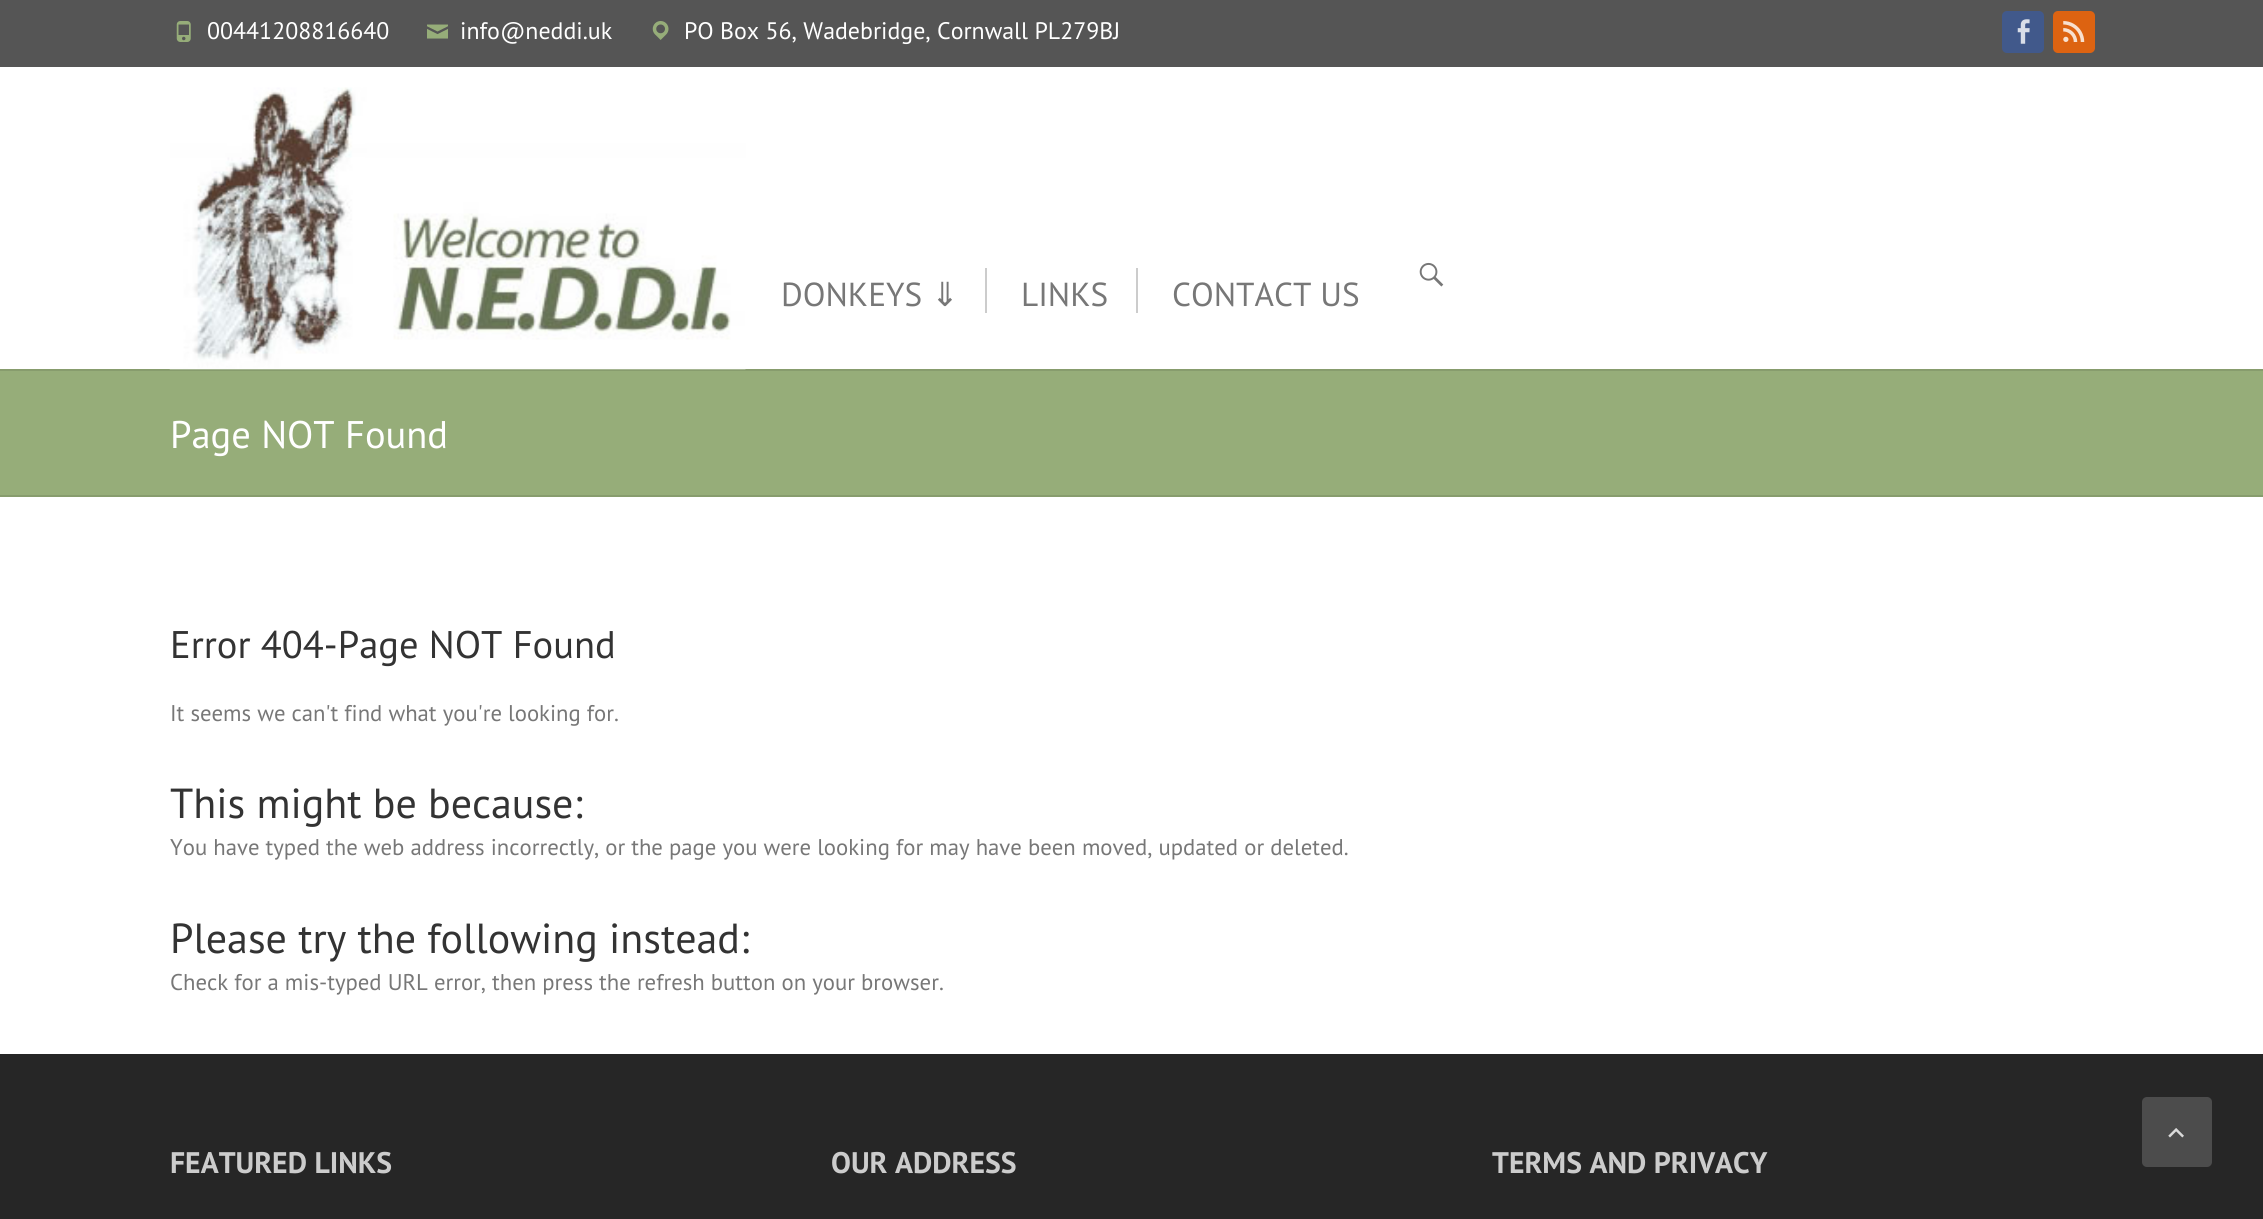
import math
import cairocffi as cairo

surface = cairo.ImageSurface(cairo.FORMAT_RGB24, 2263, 1219)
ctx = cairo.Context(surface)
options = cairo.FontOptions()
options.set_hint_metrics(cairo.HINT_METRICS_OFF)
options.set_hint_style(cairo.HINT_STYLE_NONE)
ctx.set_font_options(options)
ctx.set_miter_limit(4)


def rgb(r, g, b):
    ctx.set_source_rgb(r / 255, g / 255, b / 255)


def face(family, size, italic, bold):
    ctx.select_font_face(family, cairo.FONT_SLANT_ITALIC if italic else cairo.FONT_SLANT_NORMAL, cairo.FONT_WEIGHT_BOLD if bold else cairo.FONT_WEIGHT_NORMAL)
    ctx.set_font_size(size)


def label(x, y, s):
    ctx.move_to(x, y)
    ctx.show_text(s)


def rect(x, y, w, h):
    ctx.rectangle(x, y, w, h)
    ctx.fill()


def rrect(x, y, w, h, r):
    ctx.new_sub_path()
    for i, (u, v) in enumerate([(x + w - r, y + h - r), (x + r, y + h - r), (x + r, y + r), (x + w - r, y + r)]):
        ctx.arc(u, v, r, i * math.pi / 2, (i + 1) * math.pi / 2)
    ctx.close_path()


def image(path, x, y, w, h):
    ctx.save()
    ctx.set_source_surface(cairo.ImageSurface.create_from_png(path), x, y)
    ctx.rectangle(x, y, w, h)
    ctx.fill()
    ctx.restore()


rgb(255, 255, 255)
ctx.paint()
rgb(85, 85, 85)
rect(0, 0, 2263, 67)
image('image0.png', 176, 21, 15, 21)
face('PT Sans', 23.9, 0, 0)
rgb(255, 255, 255)
label(207, 39, '00441208816640')
image('image1.png', 427, 24, 21, 15)
label(460, 39, 'info@neddi.uk')
image('image2.png', 652, 21, 17, 19)
label(684, 39, 'PO Box 56, Wadebridge, Cornwall PL279BJ')
rgb(65, 89, 139)
rrect(2002, 11, 42, 42, 5)
ctx.fill()
image('image3.png', 2017, 19, 13, 25)
rgb(221, 99, 17)
rrect(2053, 11, 42, 42, 5)
ctx.fill()
image('image4.png', 2063, 21, 22, 21)
rgb(135, 156, 109)
rect(0, 369, 2263, 2)
image('image5.png', 169, 87, 577, 283)
image('image6.png', 1419, 262, 25, 25)
rgb(204, 204, 204)
rect(985, 268, 2, 45)
face('PT Sans', 33.25, 0, 0)
rgb(119, 119, 119)
label(781, 306, 'DONKEYS')
face('DejaVu Sans', 33.25, 0, 0)
label(931, 306, '⇓')
rgb(204, 204, 204)
rect(1136, 268, 2, 45)
face('PT Sans', 33.25, 0, 0)
rgb(119, 119, 119)
label(1021, 306, 'LINKS')
label(1172, 306, 'CONTACT US')
rgb(150, 173, 121)
rect(0, 371, 2263, 124)
rgb(135, 156, 109)
rect(0, 495, 2263, 2)
face('PT Sans', 38.5, 0, 0)
rgb(255, 255, 255)
label(170, 448, 'Page NOT Found')
rgb(51, 51, 51)
label(170, 658, 'Error 404-Page NOT Found')
face('PT Sans', 22.75, 0, 0)
rgb(119, 119, 119)
label(170, 721, 'It seems we can\'t find what you\'re looking for.')
face('PT Sans', 42, 0, 0)
rgb(51, 51, 51)
label(170, 818, 'This might be because:')
face('PT Sans', 22.75, 0, 0)
rgb(119, 119, 119)
label(170, 855, 'You have typed the web address incorrectly, or the page you were looking for may have been moved, updated or deleted.')
face('PT Sans', 42, 0, 0)
rgb(51, 51, 51)
label(170, 953, 'Please try the following instead:')
face('PT Sans', 22.75, 0, 0)
rgb(119, 119, 119)
label(170, 990, 'Check for a mis-typed URL error, then press the refresh button on your browser.')
rgb(38, 38, 38)
rect(0, 1054, 2263, 165)
face('PT Sans', 29.75, 0, 1)
rgb(204, 204, 204)
label(170, 1173, 'FEATURED LINKS')
label(831, 1173, 'OUR ADDRESS')
label(1492, 1173, 'TERMS AND PRIVACY')
rgb(76, 76, 76)
rrect(2142, 1097, 70, 70, 5)
ctx.fill()
image('image7.png', 2168, 1128, 16, 10)
surface.write_to_png('render.png')
